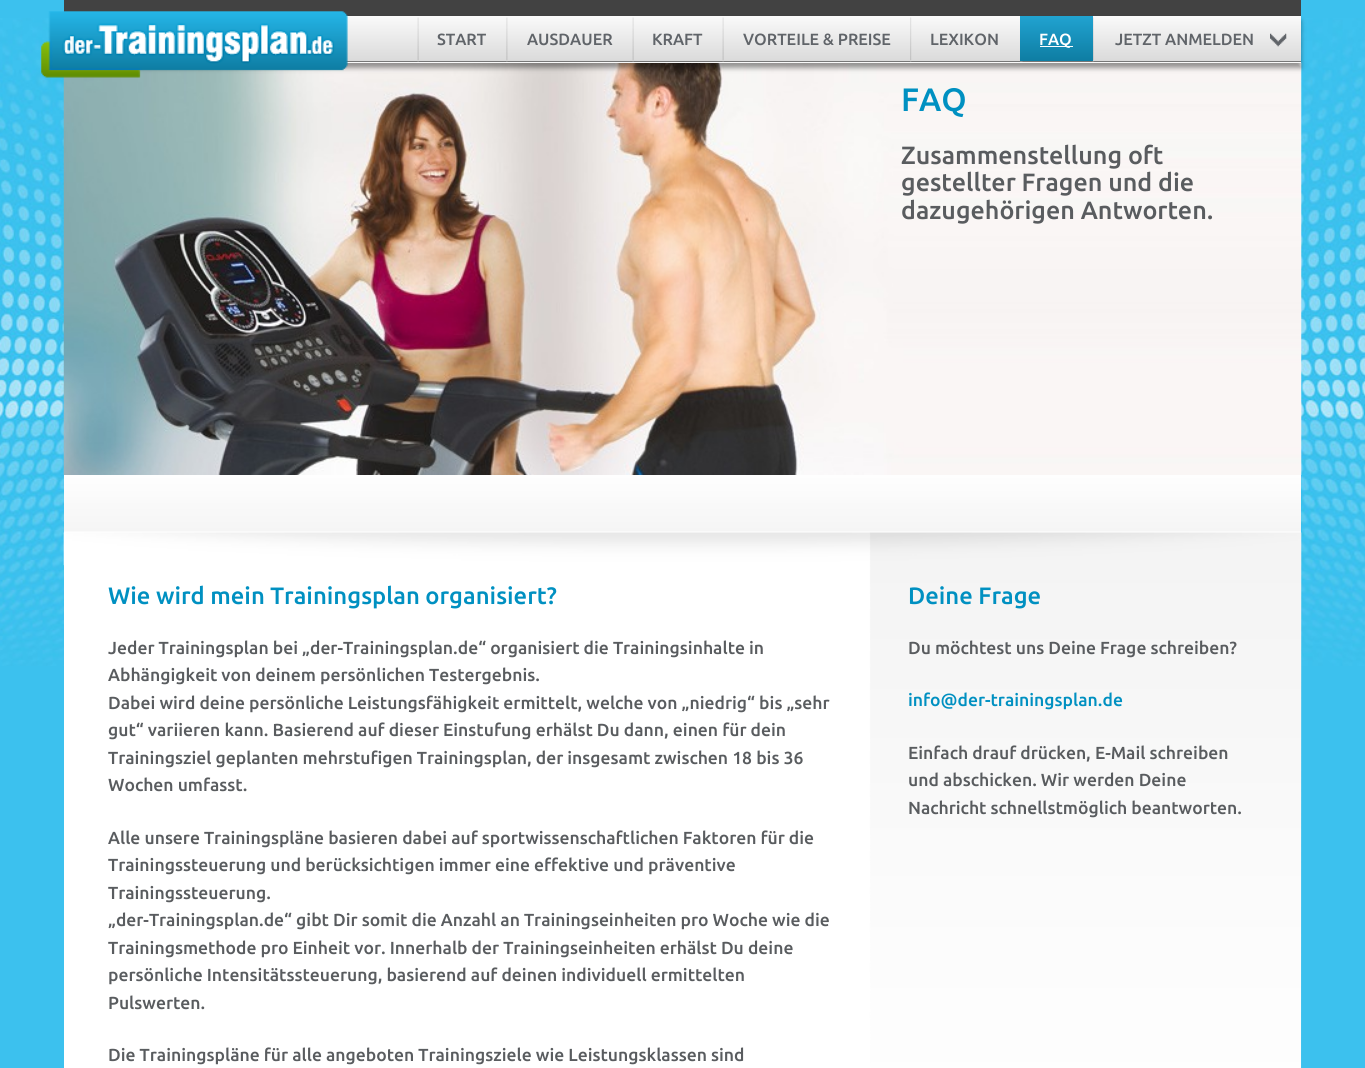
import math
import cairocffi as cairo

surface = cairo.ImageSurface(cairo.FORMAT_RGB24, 1365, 1068)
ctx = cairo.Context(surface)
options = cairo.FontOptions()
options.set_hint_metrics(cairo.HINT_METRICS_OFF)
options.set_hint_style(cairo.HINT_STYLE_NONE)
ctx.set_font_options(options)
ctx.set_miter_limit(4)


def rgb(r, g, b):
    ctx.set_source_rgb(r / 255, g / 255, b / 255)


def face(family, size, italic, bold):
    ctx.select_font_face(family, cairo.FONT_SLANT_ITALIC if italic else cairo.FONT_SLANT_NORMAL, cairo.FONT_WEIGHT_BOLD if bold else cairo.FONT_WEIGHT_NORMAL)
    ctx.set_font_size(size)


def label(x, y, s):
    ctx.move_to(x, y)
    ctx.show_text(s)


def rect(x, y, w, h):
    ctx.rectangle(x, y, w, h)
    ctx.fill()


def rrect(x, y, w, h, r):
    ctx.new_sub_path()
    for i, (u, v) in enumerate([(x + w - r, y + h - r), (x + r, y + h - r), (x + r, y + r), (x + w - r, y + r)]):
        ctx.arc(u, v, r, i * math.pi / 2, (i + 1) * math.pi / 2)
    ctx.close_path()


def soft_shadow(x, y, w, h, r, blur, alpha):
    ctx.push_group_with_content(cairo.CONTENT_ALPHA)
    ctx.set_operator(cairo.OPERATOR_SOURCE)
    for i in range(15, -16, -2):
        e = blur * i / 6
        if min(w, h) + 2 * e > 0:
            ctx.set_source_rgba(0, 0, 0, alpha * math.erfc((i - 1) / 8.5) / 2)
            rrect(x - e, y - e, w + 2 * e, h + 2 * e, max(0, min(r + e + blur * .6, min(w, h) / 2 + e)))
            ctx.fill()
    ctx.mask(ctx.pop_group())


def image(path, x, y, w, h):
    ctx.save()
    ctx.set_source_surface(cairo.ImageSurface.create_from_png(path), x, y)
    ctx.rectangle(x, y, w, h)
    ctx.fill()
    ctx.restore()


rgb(60, 193, 238)
ctx.paint()
image('image0.png', 0, 18, 1365, 648)
rgb(66, 66, 66)
rect(64, 0, 1237, 16)
image('image1.png', 63, 62, 1239, 413)
rgb(0, 0, 0)
soft_shadow(64, 21, 1237, 47, 0, 2.5, 0.4)
gradient = cairo.LinearGradient(683, 16, 683, 61)
gradient.add_color_stop_rgba(0, 0.98, 0.98, 0.98, 1)
gradient.add_color_stop_rgba(1, 0.855, 0.855, 0.855, 1)
ctx.set_source(gradient)
rect(346, 16, 955, 45)
gradient = cairo.LinearGradient(683, 61, 683, 106)
gradient.add_color_stop_rgba(0, 0.98, 0.98, 0.98, 1)
gradient.add_color_stop_rgba(1, 0.855, 0.855, 0.855, 1)
ctx.set_source(gradient)
rect(346, 62, 955, 1)
rgb(119, 119, 119)
rect(346, 61, 955, 1)
image('image2.png', 41, 11, 307, 67)
image('image3.png', 417, 17, 2, 45)
face('Ubuntu Medium', 16.25, 0, 0)
rgb(96, 100, 105)
label(437, 45, 'START')
image('image4.png', 506, 17, 2, 45)
label(527, 45, 'AUSDAUER')
image('image3.png', 632, 17, 2, 45)
label(652, 45, 'KRAFT')
image('image3.png', 722, 17, 2, 45)
label(743, 45, 'VORTEILE & PREISE')
image('image5.png', 910, 17, 2, 45)
label(930, 45, 'LEXIKON')
image('image6.png', 1020, 61, 3, 1)
image('image3.png', 1092, 17, 2, 45)
gradient = cairo.LinearGradient(1056, 16, 1056, 61)
gradient.add_color_stop_rgba(0, 0.129, 0.639, 0.816, 1)
gradient.add_color_stop_rgba(1, 0.055, 0.49, 0.639, 1)
ctx.set_source(gradient)
rect(1020, 16, 73, 45)
rgb(255, 255, 255)
rect(1040, 46, 33, 1)
label(1039, 45, 'FAQ')
image('image7.png', 1270, 33, 17, 14)
rgb(96, 100, 105)
label(1115, 45, 'JETZT ANMELDEN')
face('Ubuntu Medium', 32.5, 0, 0)
rgb(0, 144, 193)
label(901, 111, 'FAQ')
face('Ubuntu Medium', 25, 0, 0)
rgb(89, 92, 95)
label(901, 164, 'Zusammenstellung oft')
label(901, 191, 'gestellter Fragen und die')
label(901, 219, 'dazugehörigen Antworten.')
rgb(255, 255, 255)
rect(64, 532, 1237, 536)
gradient = cairo.LinearGradient(683, 475, 683, 531)
gradient.add_color_stop_rgba(0, 0.996, 0.996, 0.996, 1)
gradient.add_color_stop_rgba(1, 0.961, 0.961, 0.961, 1)
ctx.set_source(gradient)
rect(64, 475, 1237, 56)
rgb(250, 250, 250)
rect(64, 531, 1237, 1)
image('image8.png', 63, 532, 1239, 536)
face('Ubuntu Medium', 23.75, 0, 0)
rgb(0, 144, 193)
label(108, 604, 'Wie wird mein Trainingsplan organisiert?')
face('Ubuntu Medium', 17.5, 0, 0)
rgb(89, 92, 95)
label(108, 654, 'Jeder Trainingsplan bei „der-Trainingsplan.de“ organisiert die Trainingsinhalte in')
label(108, 681, 'Abhängigkeit von deinem persönlichen Testergebnis.')
label(108, 709, 'Dabei wird deine persönliche Leistungsfähigkeit ermittelt, welche von „niedrig“ bis „sehr')
label(108, 736, 'gut“ variieren kann. Basierend auf dieser Einstufung erhälst Du dann, einen für dein')
label(108, 764, 'Trainingsziel geplanten mehrstufigen Trainingsplan, der insgesamt zwischen 18 bis 36')
label(108, 791, 'Wochen umfasst.')
label(108, 844, 'Alle unsere Trainingspläne basieren dabei auf sportwissenschaftlichen Faktoren für die')
label(108, 871, 'Trainingssteuerung und berücksichtigen immer eine effektive und präventive')
label(108, 899, 'Trainingssteuerung.')
label(108, 926, '„der-Trainingsplan.de“ gibt Dir somit die Anzahl an Trainingseinheiten pro Woche wie die')
label(108, 954, 'Trainingsmethode pro Einheit vor. Innerhalb der Trainingseinheiten erhälst Du deine')
label(108, 981, 'persönliche Intensitätssteuerung, basierend auf deinen individuell ermittelten')
label(108, 1009, 'Pulswerten.')
label(108, 1061, 'Die Trainingspläne für alle angeboten Trainingsziele wie Leistungsklassen sind')
face('Ubuntu Medium', 23.75, 0, 0)
rgb(0, 144, 193)
label(908, 604, 'Deine Frage')
face('Ubuntu Medium', 17.5, 0, 0)
rgb(89, 92, 95)
label(908, 654, 'Du möchtest uns Deine Frage schreiben?')
rgb(0, 144, 193)
label(908, 706, 'info@der-trainingsplan.de')
rgb(89, 92, 95)
label(908, 759, 'Einfach drauf drücken, E-Mail schreiben')
label(908, 786, 'und abschicken. Wir werden Deine')
label(908, 814, 'Nachricht schnellstmöglich beantworten.')
surface.write_to_png('render.png')
